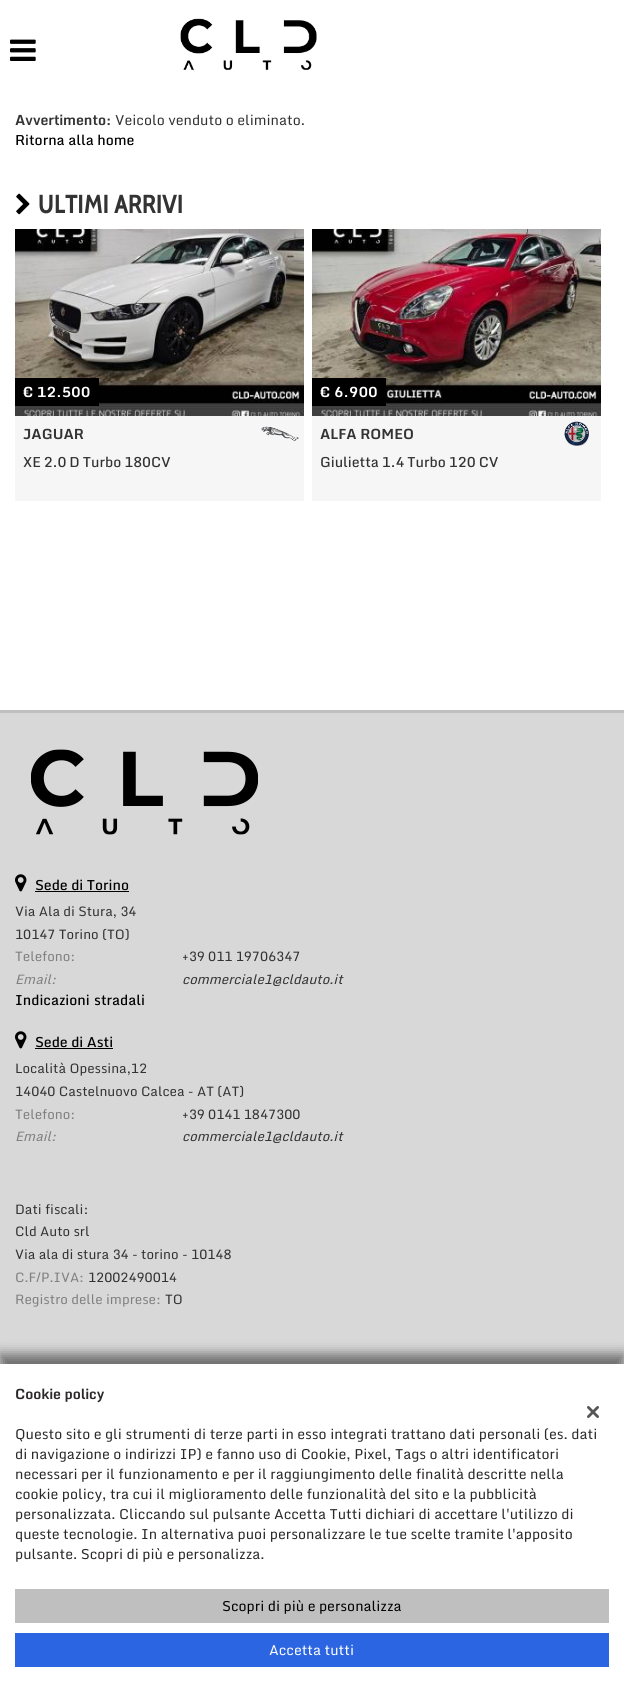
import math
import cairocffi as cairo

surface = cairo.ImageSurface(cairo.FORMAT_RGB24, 624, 1697)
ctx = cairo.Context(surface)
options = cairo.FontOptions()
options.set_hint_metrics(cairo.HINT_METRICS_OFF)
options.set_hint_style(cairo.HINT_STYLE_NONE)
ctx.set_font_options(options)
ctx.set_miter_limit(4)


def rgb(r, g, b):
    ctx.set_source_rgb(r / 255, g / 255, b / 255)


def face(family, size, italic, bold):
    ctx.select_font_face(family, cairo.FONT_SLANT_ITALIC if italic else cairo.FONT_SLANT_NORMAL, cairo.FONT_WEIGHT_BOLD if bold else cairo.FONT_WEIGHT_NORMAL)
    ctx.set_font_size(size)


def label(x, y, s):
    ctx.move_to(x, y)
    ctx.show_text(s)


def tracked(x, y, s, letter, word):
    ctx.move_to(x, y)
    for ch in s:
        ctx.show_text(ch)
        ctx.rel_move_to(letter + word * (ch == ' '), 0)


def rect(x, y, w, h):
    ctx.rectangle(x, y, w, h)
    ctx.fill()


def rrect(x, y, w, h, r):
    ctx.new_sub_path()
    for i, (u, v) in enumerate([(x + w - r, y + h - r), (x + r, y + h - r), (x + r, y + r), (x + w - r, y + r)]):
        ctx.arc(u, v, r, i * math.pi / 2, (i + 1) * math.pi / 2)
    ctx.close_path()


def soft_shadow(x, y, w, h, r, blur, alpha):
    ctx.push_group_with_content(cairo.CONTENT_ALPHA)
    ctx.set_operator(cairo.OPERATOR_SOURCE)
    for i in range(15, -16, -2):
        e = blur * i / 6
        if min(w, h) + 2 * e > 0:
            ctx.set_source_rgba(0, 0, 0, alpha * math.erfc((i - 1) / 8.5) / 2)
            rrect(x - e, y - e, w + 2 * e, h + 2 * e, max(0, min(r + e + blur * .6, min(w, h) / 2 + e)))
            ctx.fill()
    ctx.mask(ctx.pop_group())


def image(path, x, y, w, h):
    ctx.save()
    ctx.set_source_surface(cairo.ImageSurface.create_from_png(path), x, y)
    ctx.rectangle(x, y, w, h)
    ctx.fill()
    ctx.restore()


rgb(255, 255, 255)
ctx.paint()
image('image0.png', 10, 39, 26, 22)
image('image1.png', 180, 18, 137, 53)
face('Monda', 14, 0, 1)
rgb(51, 51, 51)
label(15, 125, 'Avvertimento:')
face('Monda', 14, 0, 0)
label(115, 125, 'Veicolo venduto o eliminato.')
face('Monda Medium', 14, 0, 0)
rgb(0, 0, 0)
label(15, 145, 'Ritorna alla home')
image('image2.png', 16, 193, 14, 22)
face('Cabin Condensed', 26, 0, 1)
rgb(51, 51, 51)
label(38, 213, 'ULTIMI ARRIVI')
rgb(246, 246, 246)
rect(15, 416, 289, 85)
image('image3.png', 15, 229, 289, 187)
rgb(0, 0, 0)
rect(15, 378, 84, 28)
face('Monda', 14, 0, 1)
rgb(255, 255, 255)
label(23, 397, '€ 12.500')
rgb(51, 51, 51)
label(23, 439, 'JAGUAR')
image('image4.png', 261, 426, 38, 15)
face('Monda Medium', 14, 0, 0)
tracked(23, 467, 'XE 2.0 D Turbo 180CV', 0, -0.5)
rgb(246, 246, 246)
rect(312, 416, 289, 85)
image('image5.png', 312, 229, 289, 187)
rgb(0, 0, 0)
rect(312, 378, 74, 28)
face('Monda', 14, 0, 1)
rgb(255, 255, 255)
label(320, 397, '€ 6.900')
rgb(51, 51, 51)
label(320, 439, 'ALFA ROMEO')
image('image6.png', 564, 421, 26, 25)
face('Monda Medium', 14, 0, 0)
tracked(320, 467, 'Giulietta 1.4 Turbo 120 CV', 0, -0.5)
rgb(216, 216, 216)
rect(0, 713, 624, 651)
rgb(191, 191, 191)
rect(0, 710, 624, 3)
image('image7.png', 31, 749, 227, 86)
image('image8.png', 15, 874, 12, 18)
rgb(0, 0, 0)
label(35, 890, 'Sede di Torino')
rect(35, 891, 94, 1)
face('Monda', 13.25, 0, 0)
rgb(51, 51, 51)
label(15, 916, 'Via Ala di Stura, 34')
label(15, 939, '10147 Torino (TO)')
rgb(128, 128, 128)
label(15, 961, 'Telefono:')
rgb(51, 51, 51)
label(182, 961, '+39 011 19706347')
face('Monda', 13.25, 1, 0)
rgb(128, 128, 128)
label(15, 984, 'Email:')
rgb(51, 51, 51)
label(182, 984, 'commerciale1@cldauto.it')
face('Monda Medium', 14, 0, 0)
rgb(0, 0, 0)
tracked(15, 1005, 'Indicazioni stradali', 0, 1)
image('image8.png', 15, 1031, 12, 18)
label(35, 1047, 'Sede di Asti')
rect(35, 1048, 78, 1)
face('Monda', 13.25, 0, 0)
rgb(51, 51, 51)
label(15, 1073, 'Località Opessina,12')
label(15, 1096, '14040 Castelnuovo Calcea - AT (AT)')
rgb(128, 128, 128)
label(15, 1119, 'Telefono:')
rgb(51, 51, 51)
label(182, 1119, '+39 0141 1847300')
face('Monda', 13.25, 1, 0)
rgb(128, 128, 128)
label(15, 1141, 'Email:')
rgb(51, 51, 51)
label(182, 1141, 'commerciale1@cldauto.it')
face('Monda', 13.25, 0, 0)
label(15, 1214, 'Dati fiscali:')
label(15, 1236, 'Cld Auto srl')
label(15, 1259, 'Via ala di stura 34 - torino - 10148')
rgb(128, 128, 128)
label(15, 1282, 'C.F/P.IVA:')
rgb(51, 51, 51)
label(88, 1282, '12002490014')
rgb(128, 128, 128)
label(15, 1304, 'Registro delle imprese:')
rgb(51, 51, 51)
label(165, 1304, 'TO')
rgb(0, 0, 0)
soft_shadow(0, 1354, 624, 333, 0, 6, 0.5)
rgb(255, 255, 255)
rect(0, 1364, 624, 333)
face('Monda', 14, 0, 1)
rgb(43, 41, 41)
label(15, 1399, 'Cookie policy')
face('Monda', 14, 0, 0)
label(15, 1439, 'Questo sito e gli strumenti di terze parti in esso integrati trattano dati personali (es. dati')
label(15, 1459, 'di navigazione o indirizzi IP) e fanno uso di Cookie, Pixel, Tags o altri identificatori')
label(15, 1479, 'necessari per il funzionamento e per il raggiungimento delle finalità descritte nella')
label(15, 1499, 'cookie policy, tra cui il miglioramento delle funzionalità del sito e la pubblicità')
label(15, 1519, 'personalizzata. Cliccando sul pulsante Accetta Tutti dichiari di accettare l\'utilizzo di')
label(15, 1539, 'queste tecnologie. In alternativa puoi personalizzare le tue scelte tramite l\'apposito')
label(15, 1559, 'pulsante. Scopri di più e personalizza.')
rgb(191, 191, 191)
rect(15, 1589, 594, 34)
rgb(0, 0, 0)
label(222, 1611, 'Scopri di più e personalizza')
rgb(44, 101, 225)
rect(15, 1633, 594, 34)
rgb(255, 255, 255)
label(269, 1655, 'Accetta tutti')
image('image9.png', 587, 1406, 12, 12)
surface.write_to_png('render.png')
